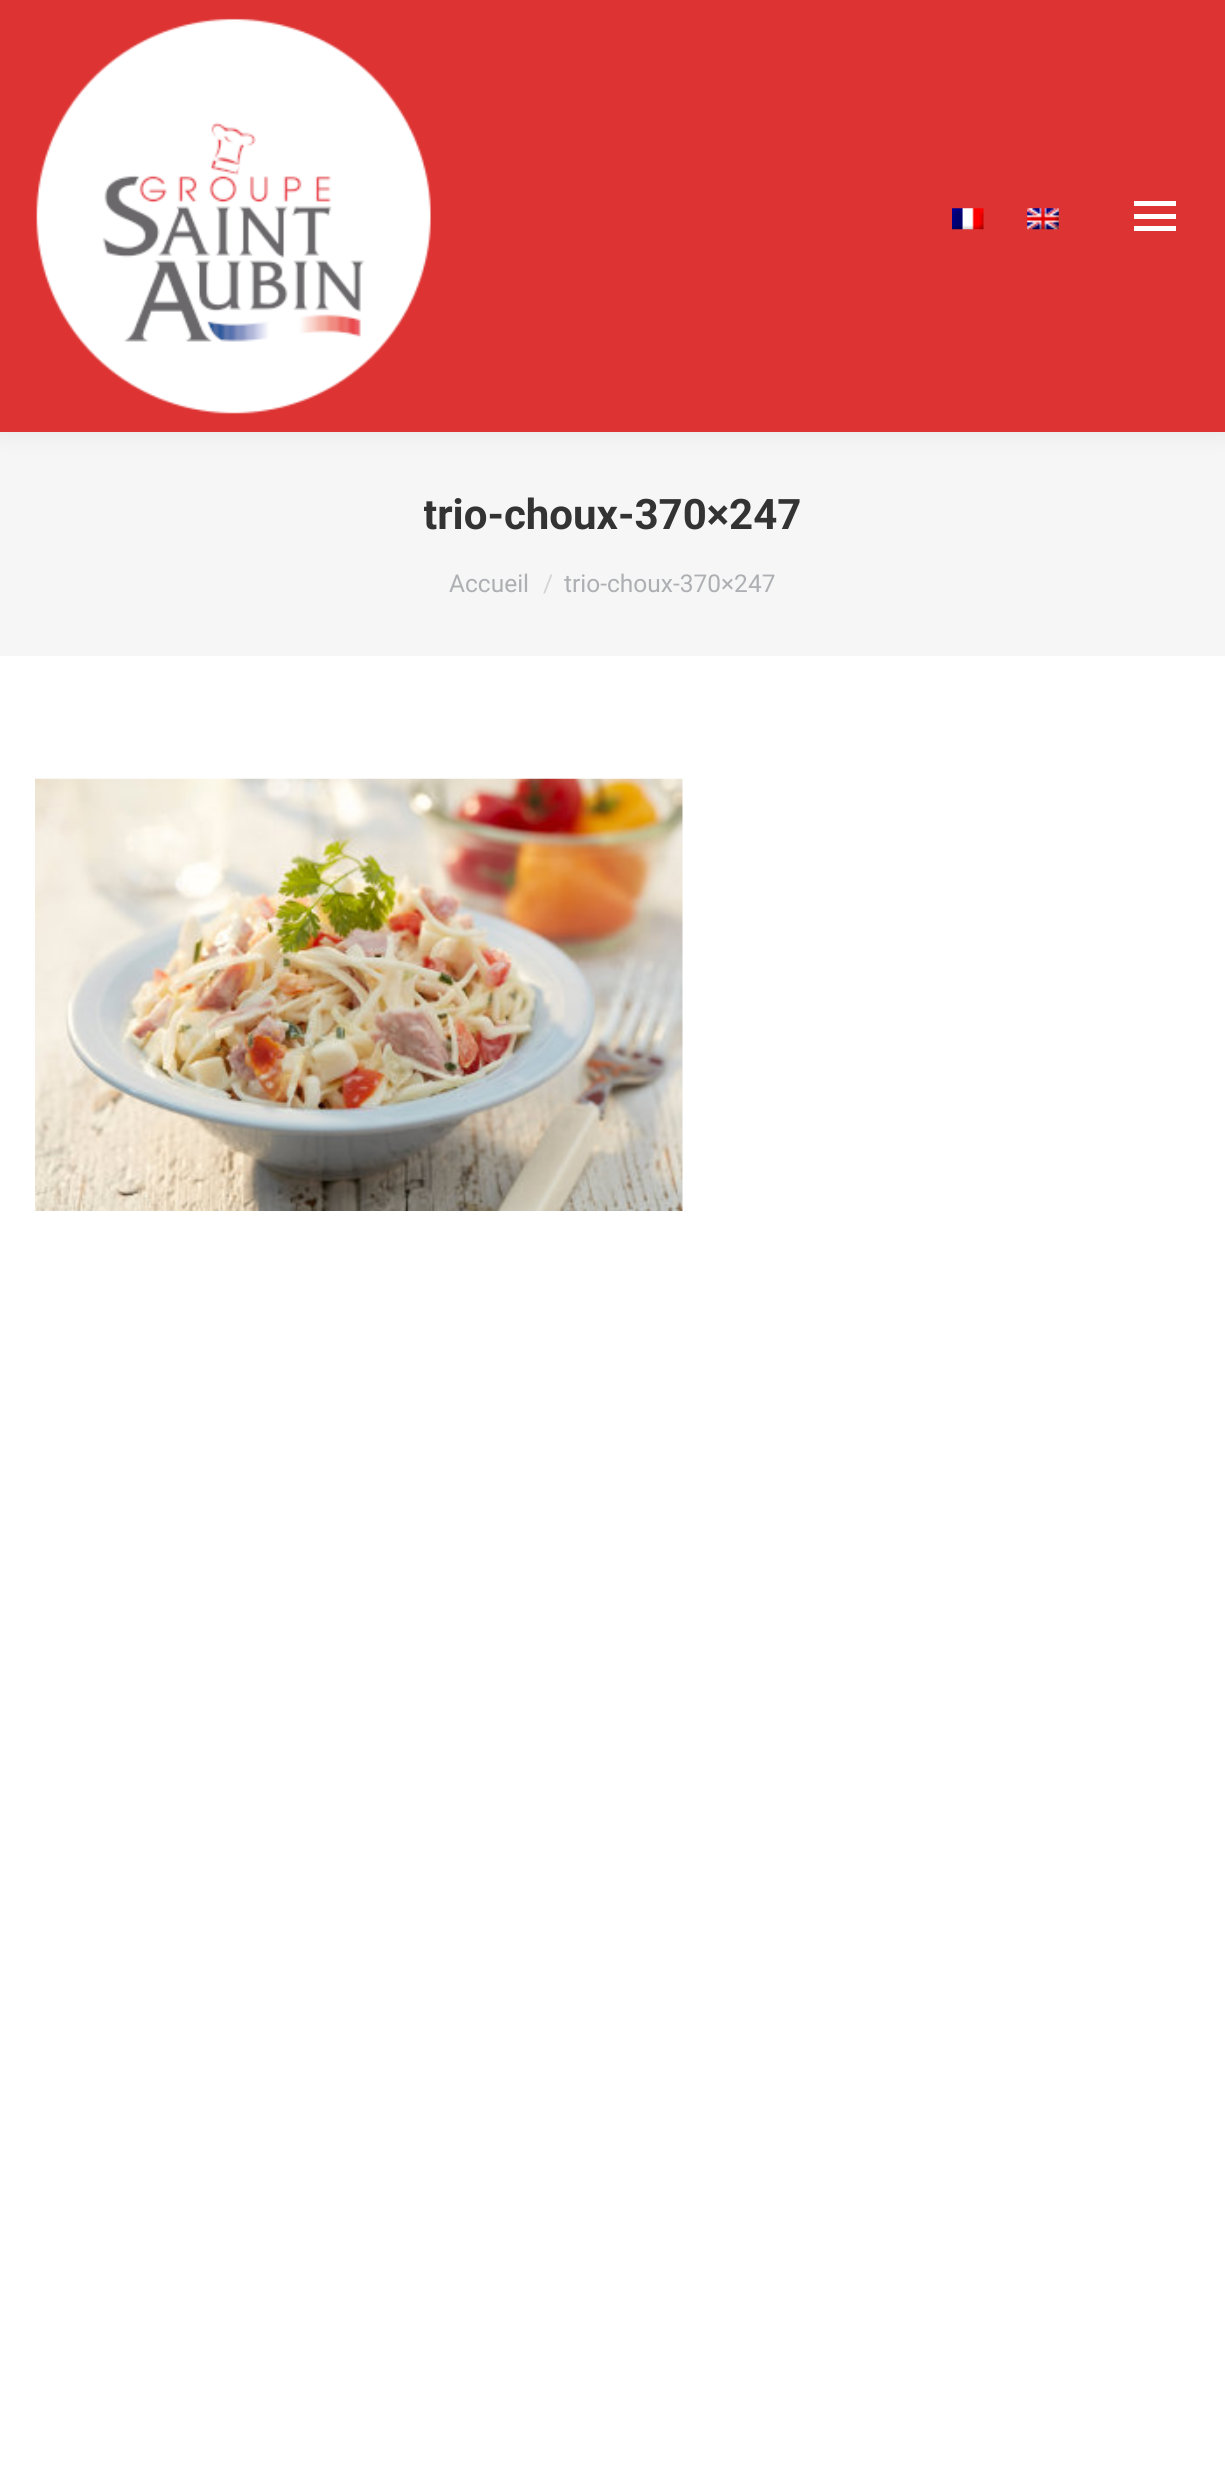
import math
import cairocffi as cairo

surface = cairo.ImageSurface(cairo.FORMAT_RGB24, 1225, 2470)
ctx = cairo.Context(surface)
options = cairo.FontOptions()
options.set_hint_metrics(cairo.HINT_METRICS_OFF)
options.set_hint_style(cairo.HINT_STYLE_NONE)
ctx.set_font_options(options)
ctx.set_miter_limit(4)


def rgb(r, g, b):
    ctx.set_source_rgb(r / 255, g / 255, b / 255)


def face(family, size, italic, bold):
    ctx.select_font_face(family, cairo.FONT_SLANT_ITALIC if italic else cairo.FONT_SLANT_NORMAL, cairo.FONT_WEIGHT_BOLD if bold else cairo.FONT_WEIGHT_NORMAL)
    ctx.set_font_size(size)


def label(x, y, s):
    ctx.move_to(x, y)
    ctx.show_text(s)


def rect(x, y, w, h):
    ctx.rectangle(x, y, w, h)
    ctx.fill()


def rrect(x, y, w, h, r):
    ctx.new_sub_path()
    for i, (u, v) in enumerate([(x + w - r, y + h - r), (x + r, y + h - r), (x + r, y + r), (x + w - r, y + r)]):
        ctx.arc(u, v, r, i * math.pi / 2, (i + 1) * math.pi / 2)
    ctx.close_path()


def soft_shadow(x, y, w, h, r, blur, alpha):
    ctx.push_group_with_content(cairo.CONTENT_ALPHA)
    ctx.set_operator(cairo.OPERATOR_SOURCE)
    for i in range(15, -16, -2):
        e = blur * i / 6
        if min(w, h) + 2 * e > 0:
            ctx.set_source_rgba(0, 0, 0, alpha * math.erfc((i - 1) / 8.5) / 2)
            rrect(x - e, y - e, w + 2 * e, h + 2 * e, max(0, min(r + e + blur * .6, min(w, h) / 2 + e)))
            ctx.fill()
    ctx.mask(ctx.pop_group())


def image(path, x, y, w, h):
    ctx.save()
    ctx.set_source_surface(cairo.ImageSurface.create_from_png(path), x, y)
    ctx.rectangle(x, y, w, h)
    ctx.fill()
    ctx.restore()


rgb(255, 255, 255)
ctx.paint()
rgb(246, 246, 246)
rect(0, 432, 1225, 224)
rgb(0, 0, 0)
soft_shadow(-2, -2, 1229, 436, 0, 13, 0.07)
rgb(221, 51, 51)
rect(0, 0, 1225, 432)
image('image0.png', 36, 18, 395, 396)
image('image1.png', 952, 208, 32, 22)
image('image2.png', 1027, 208, 32, 22)
rgb(255, 255, 255)
rect(1134, 201, 42, 5)
rect(1134, 214, 42, 5)
rect(1134, 226, 42, 5)
ctx.save()
ctx.rectangle(424, 485, 378, 59)
ctx.clip()
face('Roboto', 42, 0, 1)
rgb(51, 51, 51)
label(423, 529, 'trio-choux-370×247')
ctx.restore()
face('Roboto', 24.5, 0, 0)
rgb(173, 175, 179)
label(449, 592, 'Accueil')
rgb(210, 211, 213)
label(543, 592, '/')
rgb(173, 175, 179)
label(564, 592, 'trio-choux-370×247')
image('image3.png', 35, 778, 648, 433)
surface.write_to_png('render.png')
